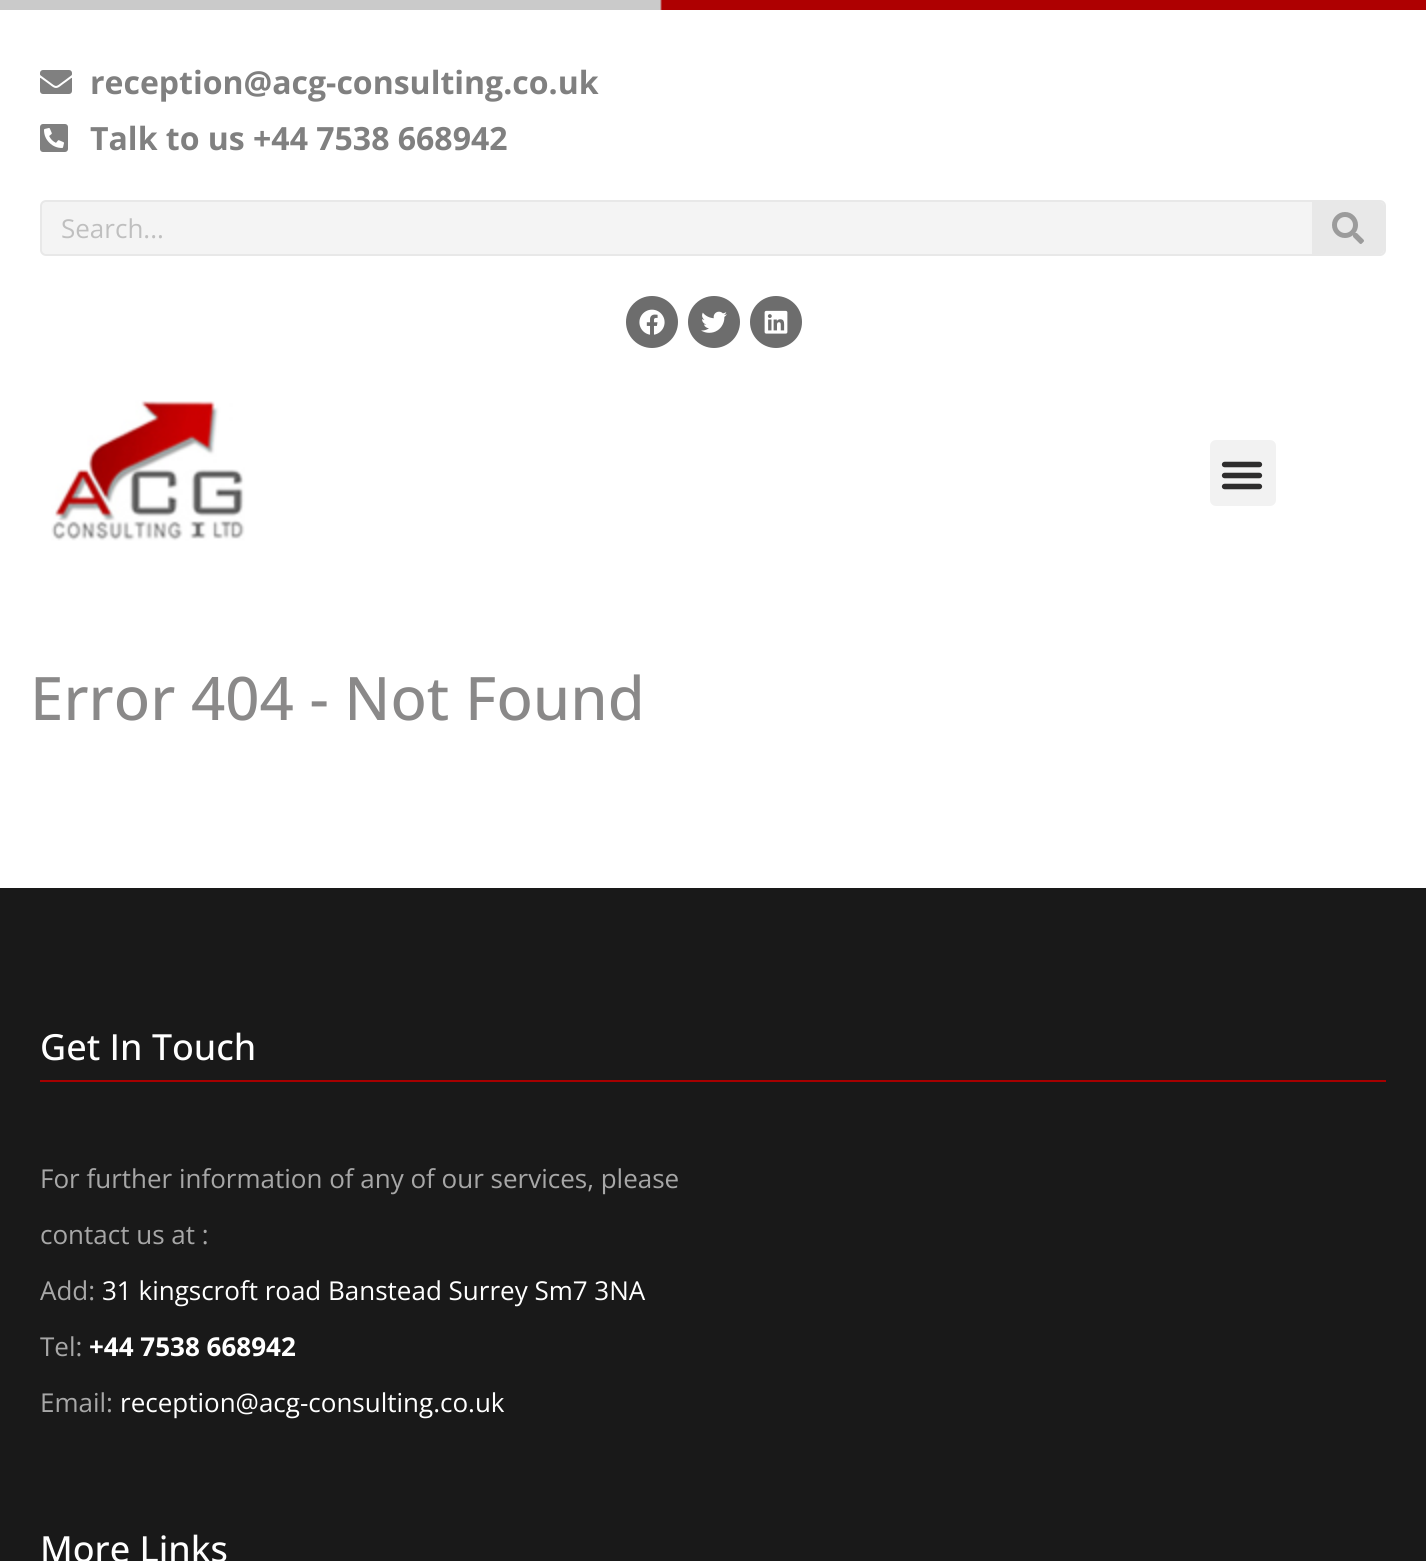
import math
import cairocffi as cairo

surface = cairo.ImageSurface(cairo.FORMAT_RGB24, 1426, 1561)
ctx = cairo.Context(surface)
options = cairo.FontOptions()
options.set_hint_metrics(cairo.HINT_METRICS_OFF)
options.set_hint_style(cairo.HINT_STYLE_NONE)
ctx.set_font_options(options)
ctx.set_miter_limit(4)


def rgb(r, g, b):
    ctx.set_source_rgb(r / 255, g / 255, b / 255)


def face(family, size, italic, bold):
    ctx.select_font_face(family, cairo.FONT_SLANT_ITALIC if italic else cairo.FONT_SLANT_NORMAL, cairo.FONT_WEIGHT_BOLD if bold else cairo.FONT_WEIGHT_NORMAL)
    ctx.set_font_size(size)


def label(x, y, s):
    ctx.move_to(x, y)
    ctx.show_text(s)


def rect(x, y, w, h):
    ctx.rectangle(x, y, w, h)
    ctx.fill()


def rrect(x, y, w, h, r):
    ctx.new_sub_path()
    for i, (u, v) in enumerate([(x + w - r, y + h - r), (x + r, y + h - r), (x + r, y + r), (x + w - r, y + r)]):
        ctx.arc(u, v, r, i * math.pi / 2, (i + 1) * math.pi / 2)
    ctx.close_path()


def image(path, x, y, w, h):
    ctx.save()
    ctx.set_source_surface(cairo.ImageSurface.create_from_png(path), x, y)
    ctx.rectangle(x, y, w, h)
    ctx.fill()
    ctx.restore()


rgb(255, 255, 255)
ctx.paint()
image('image0.png', 0, 0, 1426, 10)
image('image1.png', 40, 70, 32, 24)
face('Open Sans', 32, 0, 1)
rgb(128, 128, 128)
label(90, 94, 'reception@acg-consulting.co.uk')
image('image2.png', 40, 124, 28, 28)
label(90, 150, 'Talk to us +44 7538 668942')
rgb(244, 244, 244)
rrect(41, 201, 1344, 54, 5)
ctx.fill_preserve()
rgb(232, 232, 232)
ctx.stroke()
face('Open Sans', 26, 0, 0)
rgb(191, 191, 191)
label(61, 238, 'Search...')
rgb(232, 232, 232)
ctx.new_path()
ctx.move_to(1312, 202)
ctx.line_to(1380, 202)
ctx.curve_to(1382, 202, 1384, 204, 1384, 206)
ctx.line_to(1384, 250)
ctx.curve_to(1384, 252, 1382, 254, 1380, 254)
ctx.line_to(1312, 254)
ctx.close_path()
ctx.fill()
image('image3.png', 1332, 212, 32, 32)
rgb(109, 109, 109)
ctx.arc(652, 322, 26, 0, 2 * math.pi)
ctx.fill()
image('image4.png', 639, 309, 26, 26)
ctx.arc(714, 322, 26, 0, 2 * math.pi)
ctx.fill()
image('image5.png', 701, 311, 26, 22)
ctx.arc(776, 322, 26, 0, 2 * math.pi)
ctx.fill()
image('image6.png', 764, 310, 24, 24)
image('image7.png', 51, 400, 194, 141)
rgb(242, 242, 242)
rrect(1210, 440, 66, 66, 6)
ctx.fill()
image('image8.png', 1221, 461, 42, 29)
face('Open Sans Medium', 60, 0, 0)
rgb(138, 137, 137)
label(30, 720, 'Error 404 - Not Found')
rgb(25, 25, 25)
rect(0, 888, 1426, 673)
rgb(166, 0, 0)
rect(40, 1080, 1346, 2)
face('Open Sans Medium', 36, 0, 0)
rgb(255, 255, 255)
label(40, 1060, 'Get In Touch')
face('Open Sans', 26, 0, 0)
rgb(167, 167, 167)
label(40, 1188, 'For further information of any of our services, please')
label(40, 1244, 'contact us at :')
label(40, 1300, 'Add:')
rgb(255, 255, 255)
label(102, 1300, '31 kingscroft road Banstead Surrey Sm7 3NA')
rgb(167, 167, 167)
label(40, 1356, 'Tel:')
face('Open Sans', 26, 0, 1)
rgb(255, 255, 255)
label(89, 1356, '+44 7538 668942')
face('Open Sans', 26, 0, 0)
rgb(167, 167, 167)
label(40, 1412, 'Email:')
rgb(255, 255, 255)
label(120, 1412, 'reception@acg-consulting.co.uk')
face('Open Sans Medium', 36, 0, 0)
label(40, 1562, 'More Links')
surface.write_to_png('render.png')
